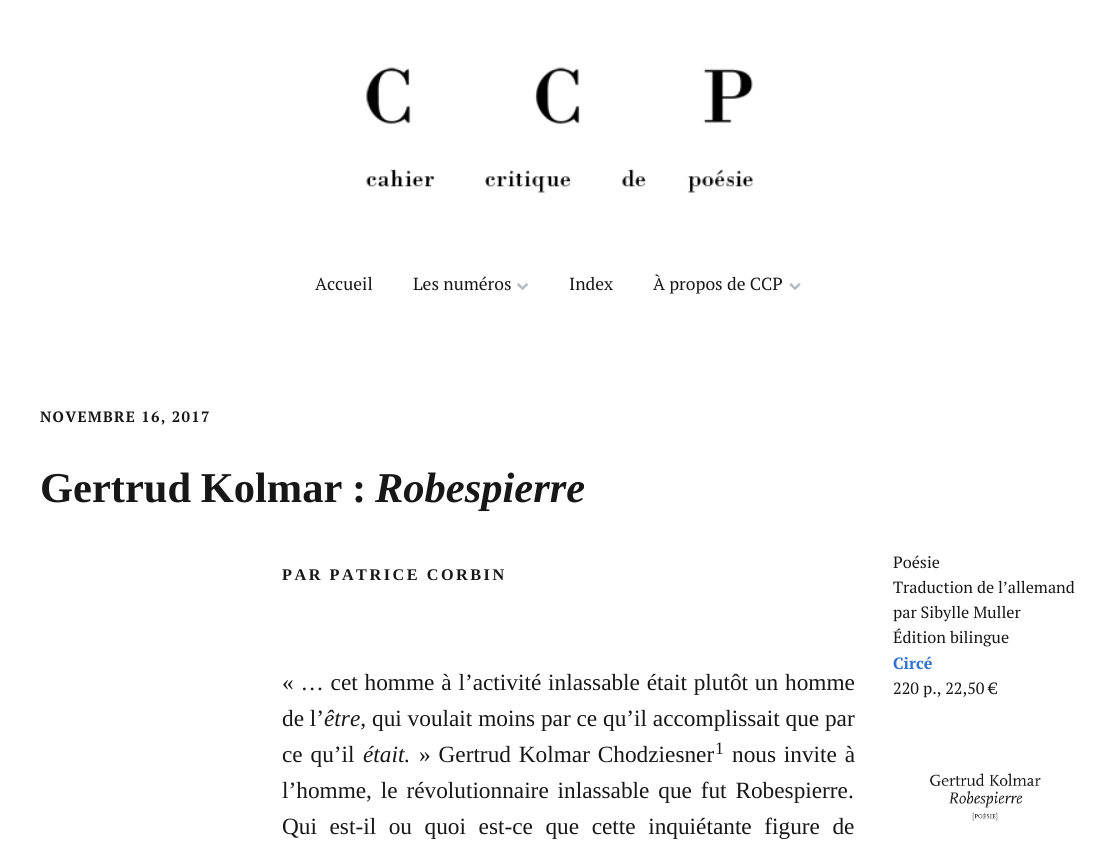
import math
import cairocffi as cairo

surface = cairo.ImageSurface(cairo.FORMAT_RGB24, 1116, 841)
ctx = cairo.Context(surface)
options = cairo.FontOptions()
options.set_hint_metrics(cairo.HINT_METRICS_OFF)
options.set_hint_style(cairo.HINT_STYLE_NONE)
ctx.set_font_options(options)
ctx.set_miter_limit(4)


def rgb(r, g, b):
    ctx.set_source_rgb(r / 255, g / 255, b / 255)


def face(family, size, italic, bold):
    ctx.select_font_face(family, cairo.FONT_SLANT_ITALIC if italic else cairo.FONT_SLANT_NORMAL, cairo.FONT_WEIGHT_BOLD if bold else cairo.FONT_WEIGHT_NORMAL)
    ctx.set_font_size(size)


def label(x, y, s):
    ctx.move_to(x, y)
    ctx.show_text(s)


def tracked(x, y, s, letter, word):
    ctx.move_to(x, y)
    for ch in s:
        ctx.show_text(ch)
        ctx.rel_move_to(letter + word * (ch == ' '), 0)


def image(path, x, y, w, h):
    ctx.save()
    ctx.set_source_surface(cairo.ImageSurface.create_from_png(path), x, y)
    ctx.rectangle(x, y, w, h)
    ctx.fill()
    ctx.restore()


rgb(255, 255, 255)
ctx.paint()
image('image0.png', 366, 67, 387, 126)
face('PT Serif', 17.5, 0, 0)
rgb(23, 23, 23)
label(315, 290, 'Accueil')
label(413, 290, 'Les numéros')
image('image1.png', 517, 283, 11, 8)
label(569, 290, 'Index')
label(653, 290, 'À propos de CCP')
image('image2.png', 789, 283, 12, 7)
face('PT Serif', 15, 0, 1)
tracked(40, 422, 'NOVEMBRE 16, 2017', 1.25, 0)
face('Liberation Serif', 42.5, 0, 1)
tracked(40, 502, 'Gertrud Kolmar :', 0, -1)
face('Liberation Serif', 42.5, 1, 1)
label(375, 502, 'Robespierre')
face('Liberation Serif', 16.25, 0, 1)
tracked(282, 580, 'PAR PATRICE CORBIN', 2.5, 0)
face('Liberation Serif', 23.3, 0, 0)
tracked(282, 690, '« … cet homme à l’activité inlassable était plutôt un homme', 0, 1)
label(282, 726, 'de l’')
face('Liberation Serif', 23.3, 1, 0)
label(324, 726, 'être,')
face('Liberation Serif', 23.3, 0, 0)
label(372, 726, 'qui voulait moins par ce qu’il accomplissait que par')
tracked(282, 762, 'ce qu’il', 0, 2)
face('Liberation Serif', 23.3, 1, 0)
label(363, 762, 'était.')
face('Liberation Serif', 23.3, 0, 0)
tracked(419, 762, '» Gertrud Kolmar Chodziesner', 0, 2)
face('Liberation Serif', 17.5, 0, 0)
label(715, 754, '1')
face('Liberation Serif', 23.3, 0, 0)
tracked(732, 762, 'nous invite à', 0, 2)
tracked(282, 798, 'l’homme, le révolutionnaire inlassable que fut Robespierre.', 0, 3)
tracked(282, 834, 'Qui est-il ou quoi est-ce que cette inquiétante figure de', 0, 6.75)
face('PT Serif', 16.25, 0, 0)
label(893, 568, 'Poésie')
label(893, 593, 'Traduction de l’allemand')
label(893, 618, 'par Sibylle Muller')
label(893, 643, 'Édition bilingue')
face('PT Serif', 16.25, 0, 1)
rgb(48, 112, 209)
label(893, 669, 'Circé')
face('PT Serif', 16.25, 0, 0)
rgb(23, 23, 23)
label(893, 694, '220 p., 22,50 €')
image('image3.png', 930, 773, 111, 48)
surface.write_to_png('render.png')
